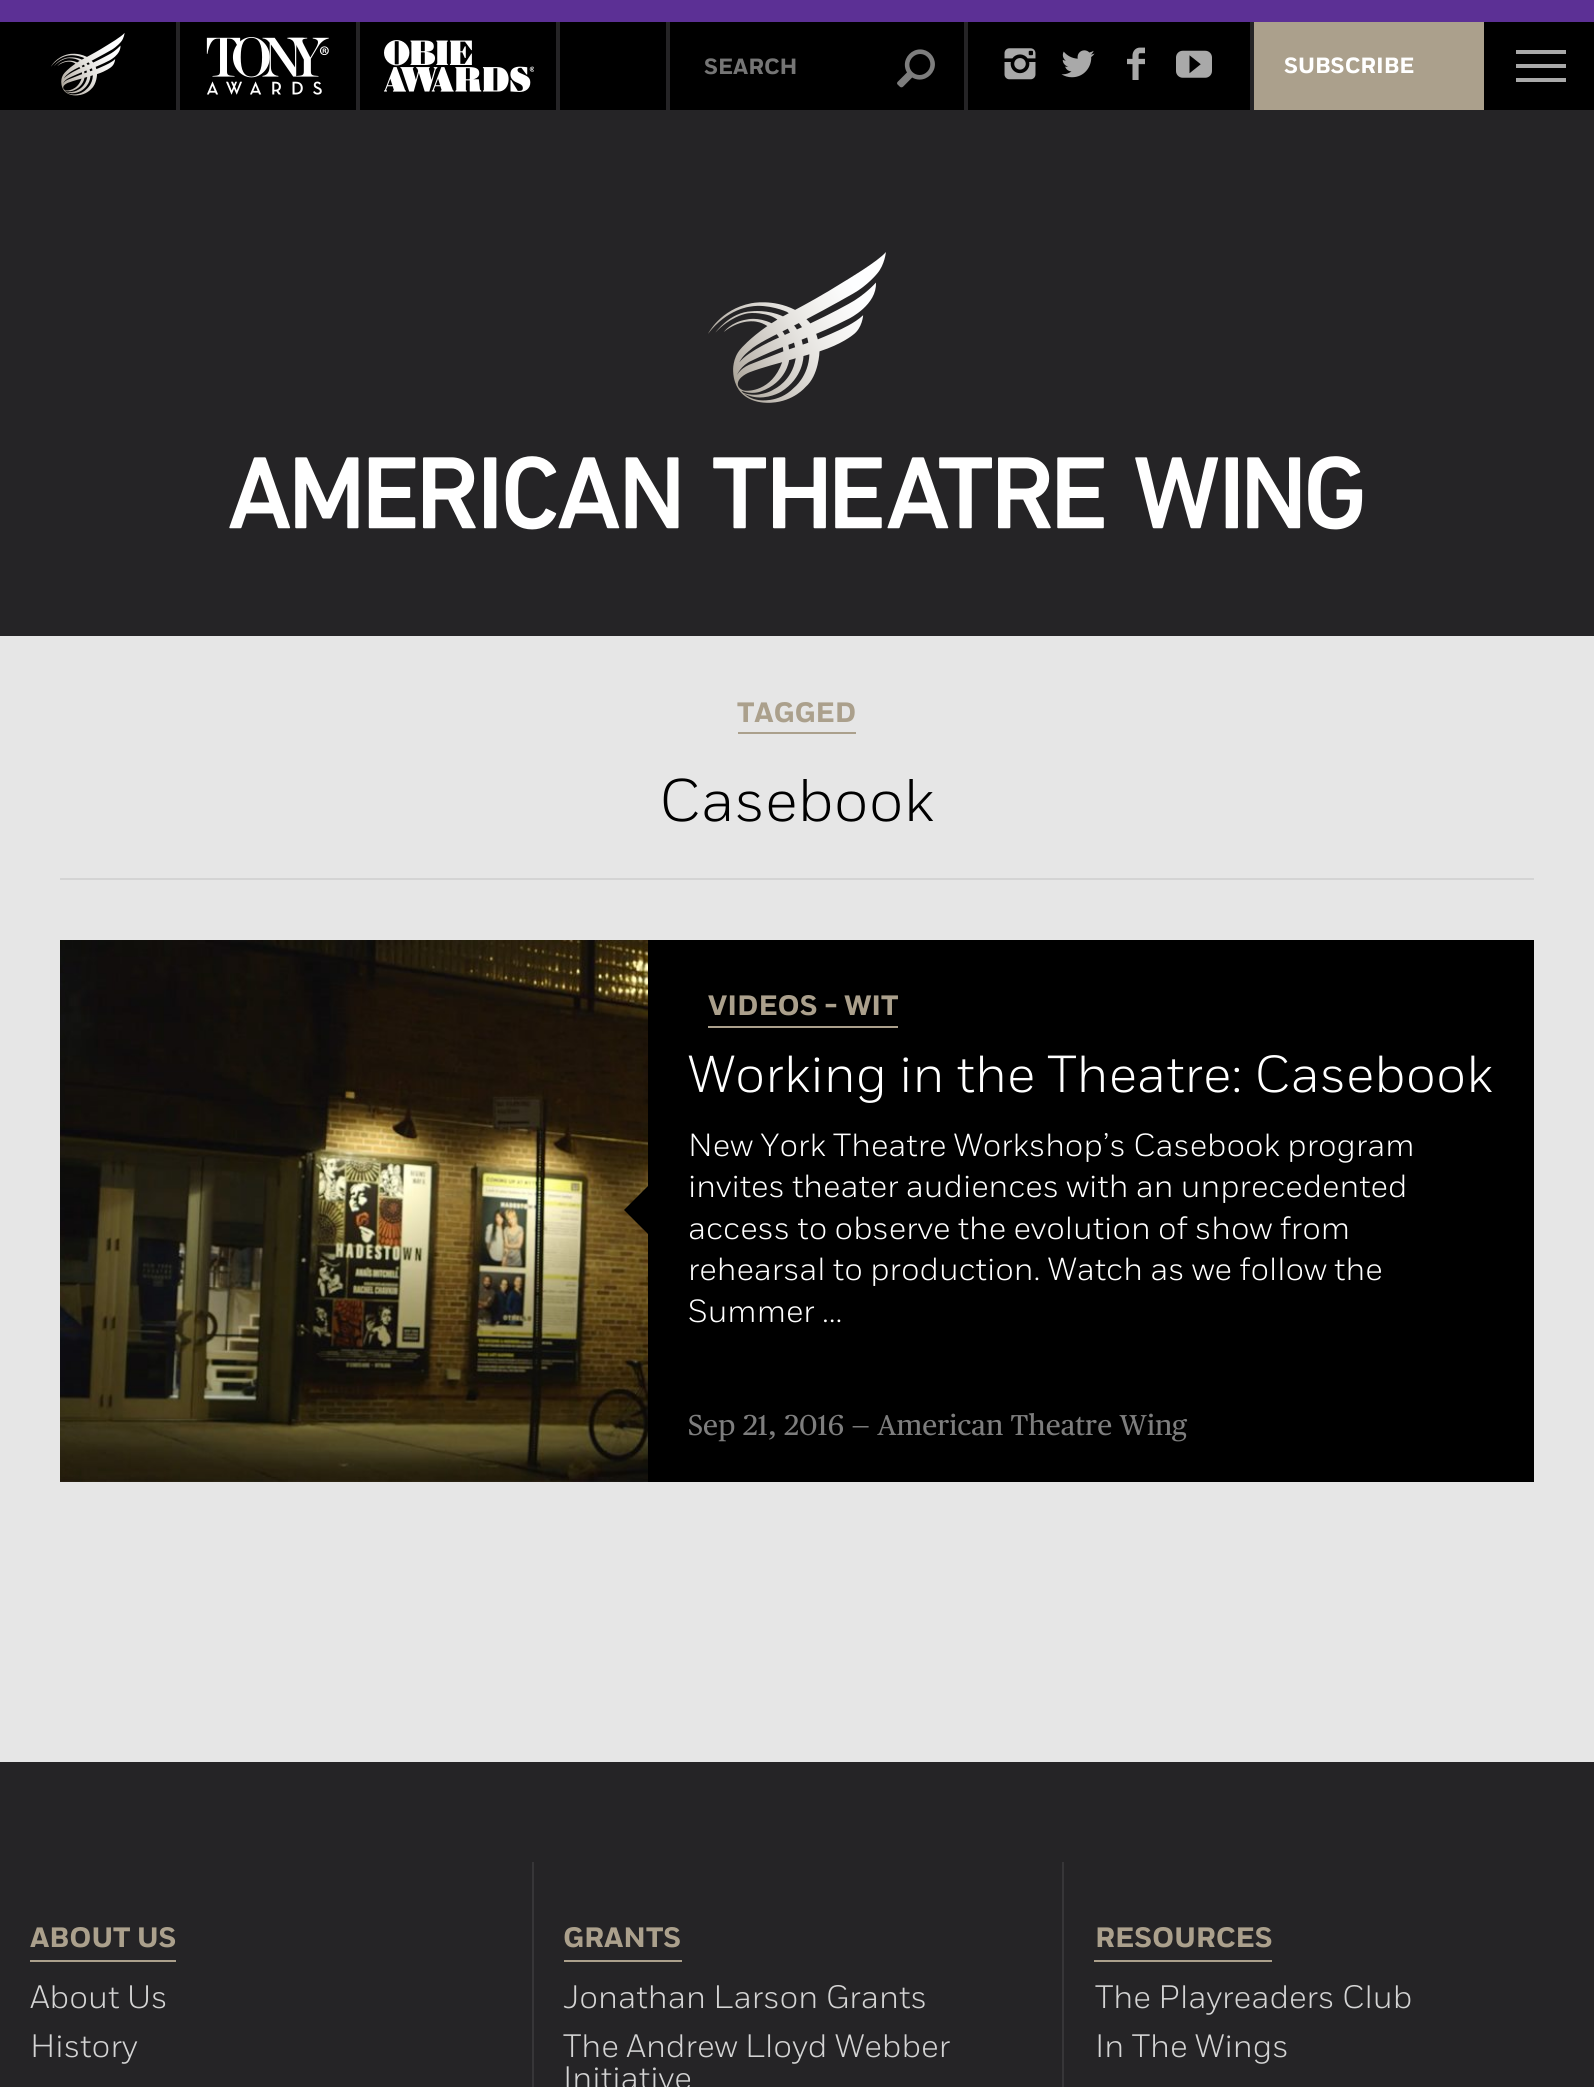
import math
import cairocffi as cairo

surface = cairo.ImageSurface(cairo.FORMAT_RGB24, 1594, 2087)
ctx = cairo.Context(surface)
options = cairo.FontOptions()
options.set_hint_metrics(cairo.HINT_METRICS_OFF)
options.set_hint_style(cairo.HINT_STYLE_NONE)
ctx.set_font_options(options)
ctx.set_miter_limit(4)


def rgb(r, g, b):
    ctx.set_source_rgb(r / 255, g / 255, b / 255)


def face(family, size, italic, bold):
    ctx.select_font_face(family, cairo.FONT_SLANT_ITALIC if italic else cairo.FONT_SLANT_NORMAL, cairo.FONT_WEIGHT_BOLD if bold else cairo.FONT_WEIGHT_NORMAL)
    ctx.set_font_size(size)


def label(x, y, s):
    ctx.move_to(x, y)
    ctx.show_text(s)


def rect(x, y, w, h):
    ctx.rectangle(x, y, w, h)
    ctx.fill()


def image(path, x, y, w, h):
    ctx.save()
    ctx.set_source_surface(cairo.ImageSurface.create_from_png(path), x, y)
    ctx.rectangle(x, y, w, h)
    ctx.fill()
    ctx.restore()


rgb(37, 36, 38)
ctx.paint()
rgb(92, 48, 149)
rect(0, 0, 1594, 22)
rgb(0, 0, 0)
rect(0, 22, 1594, 88)
rgb(37, 36, 38)
rect(356, 22, 4, 88)
image('image0.png', 51, 33, 74, 63)
rect(176, 22, 4, 88)
image('image1.png', 206, 37, 123, 58)
rect(556, 22, 4, 88)
image('image2.png', 384, 40, 150, 52)
rect(666, 22, 4, 88)
face('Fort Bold', 22, 0, 1)
rgb(117, 117, 117)
label(704, 74, 'SEARCH')
image('image3.png', 897, 49, 38, 39)
rgb(37, 36, 38)
rect(1250, 22, 4, 88)
rect(964, 22, 4, 88)
image('image4.png', 1004, 48, 32, 32)
image('image5.png', 1061, 50, 34, 28)
image('image6.png', 1127, 47, 18, 33)
image('image7.png', 1176, 50, 36, 28)
rgb(171, 160, 140)
rect(1254, 22, 230, 88)
rgb(255, 255, 255)
label(1284, 73, 'SUBSCRIBE')
rgb(169, 169, 169)
rect(1516, 50, 50, 4)
rect(1516, 64, 50, 4)
rect(1516, 78, 50, 4)
image('image8.png', 708, 252, 178, 151)
image('image9.png', 229, 456, 1134, 74)
rgb(230, 230, 230)
rect(0, 636, 1594, 1126)
rgb(212, 212, 212)
rect(60, 878, 1474, 2)
face('Fort Bold', 28, 0, 1)
rgb(171, 160, 140)
label(737, 722, 'TAGGED')
rect(738, 732, 118, 2)
face('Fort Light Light', 60, 0, 0)
rgb(0, 0, 0)
label(659, 821, 'Casebook')
image('image10.png', 60, 940, 588, 542)
rect(648, 940, 886, 542)
face('Fort Bold', 28, 0, 1)
rgb(171, 160, 140)
label(708, 1015, 'VIDEOS - WIT')
rect(708, 1026, 190, 2)
face('Fort Light Light', 52, 0, 0)
rgb(255, 255, 255)
label(688, 1092, 'Working in the Theatre: Casebook')
rgb(0, 0, 0)
ctx.new_path()
ctx.move_to(648, 1186)
ctx.line_to(648, 1234)
ctx.line_to(624, 1210)
ctx.close_path()
ctx.fill()
face('Fort Light Light', 32, 0, 0)
rgb(255, 255, 255)
label(688, 1156, 'New York Theatre Workshop’s Casebook program')
label(688, 1197, 'invites theater audiences with an unprecedented')
label(688, 1239, 'access to observe the evolution of show from')
label(688, 1280, 'rehearsal to production. Watch as we follow the')
label(688, 1322, 'Summer ...')
face('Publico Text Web', 28.75, 0, 0)
rgb(125, 125, 125)
label(688, 1435, 'Sep 21, 2016 — American Theatre Wing')
rgb(171, 160, 140)
rect(30, 1960, 146, 2)
face('Fort Bold', 28, 0, 1)
label(30, 1947, 'ABOUT US')
face('Fort Light Light', 32.4, 0, 0)
rgb(212, 212, 212)
label(30, 2008, 'About Us')
label(30, 2057, 'History')
rgb(55, 54, 56)
rect(532, 1862, 2, 225)
rgb(171, 160, 140)
rect(564, 1960, 118, 2)
face('Fort Bold', 28, 0, 1)
label(563, 1947, 'GRANTS')
face('Fort Light Light', 32.4, 0, 0)
rgb(212, 212, 212)
label(563, 2008, 'Jonathan Larson Grants')
label(563, 2057, 'The Andrew Lloyd Webber')
label(563, 2089, 'Initiative')
rgb(55, 54, 56)
rect(1062, 1862, 2, 225)
rgb(171, 160, 140)
rect(1094, 1960, 178, 2)
face('Fort Bold', 28, 0, 1)
label(1095, 1947, 'RESOURCES')
face('Fort Light Light', 32.4, 0, 0)
rgb(212, 212, 212)
label(1095, 2008, 'The Playreaders Club')
label(1095, 2057, 'In The Wings')
surface.write_to_png('render.png')
